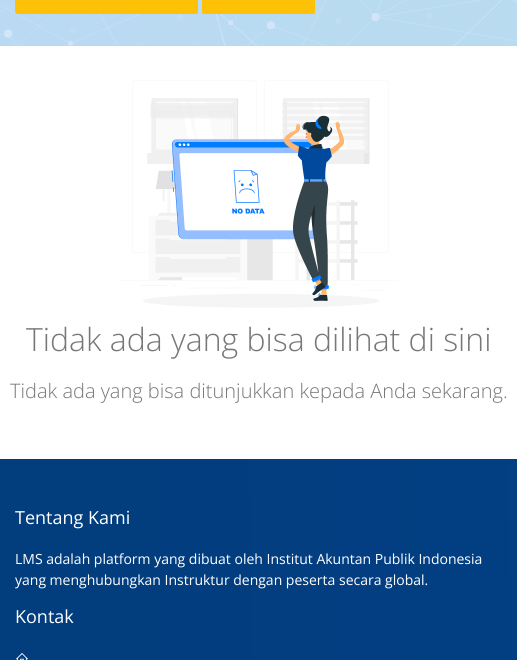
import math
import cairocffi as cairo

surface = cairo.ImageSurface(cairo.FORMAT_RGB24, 517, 660)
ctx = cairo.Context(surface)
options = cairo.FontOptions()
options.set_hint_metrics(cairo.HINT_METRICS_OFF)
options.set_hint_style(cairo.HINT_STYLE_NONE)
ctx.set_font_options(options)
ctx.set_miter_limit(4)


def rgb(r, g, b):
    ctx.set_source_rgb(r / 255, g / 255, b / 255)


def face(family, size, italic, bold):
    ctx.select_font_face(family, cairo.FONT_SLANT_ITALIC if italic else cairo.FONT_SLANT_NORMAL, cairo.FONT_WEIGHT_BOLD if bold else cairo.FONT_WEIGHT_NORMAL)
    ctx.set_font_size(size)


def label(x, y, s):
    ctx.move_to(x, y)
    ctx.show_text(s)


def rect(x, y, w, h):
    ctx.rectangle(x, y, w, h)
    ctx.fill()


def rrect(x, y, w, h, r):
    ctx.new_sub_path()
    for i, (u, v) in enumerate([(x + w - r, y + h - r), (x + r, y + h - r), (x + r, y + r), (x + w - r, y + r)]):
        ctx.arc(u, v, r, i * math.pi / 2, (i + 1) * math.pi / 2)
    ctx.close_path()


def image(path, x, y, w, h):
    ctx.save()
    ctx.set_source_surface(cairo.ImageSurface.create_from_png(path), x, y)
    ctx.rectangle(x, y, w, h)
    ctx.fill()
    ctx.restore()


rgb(255, 255, 255)
ctx.paint()
image('image0.png', 0, 0, 517, 46)
rgb(255, 193, 7)
rrect(15.5, -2.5, 182, 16, 1.5)
ctx.fill_preserve()
ctx.set_line_width(1)
ctx.stroke()
rrect(202.5, -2.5, 112, 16, 1.5)
ctx.fill_preserve()
ctx.stroke()
image('image1.png', 120, 80, 278, 228)
face('Open Sans Light', 32, 0, 0)
rgb(119, 119, 119)
label(26, 351, 'Tidak ada yang bisa dilihat di sini')
face('Open Sans Light', 20, 0, 0)
label(10, 398, 'Tidak ada yang bisa ditunjukkan kepada Anda sekarang.')
gradient = cairo.LinearGradient(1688, 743, -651, 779)
gradient.add_color_stop_rgba(0, 0.004, 0.267, 0.565, 1)
gradient.add_color_stop_rgba(1, 0.008, 0.227, 0.459, 1)
ctx.set_source(gradient)
rect(0, 459, 517, 201)
face('Open Sans', 18, 0, 0)
rgb(255, 255, 255)
label(15, 524, 'Tentang Kami')
face('Open Sans', 14, 0, 0)
label(15, 564, 'LMS adalah platform yang dibuat oleh Institut Akuntan Publik Indonesia')
label(15, 585, 'yang menghubungkan Instruktur dengan peserta secara global.')
face('Open Sans', 18, 0, 0)
label(15, 623, 'Kontak')
image('image2.png', 16, 653, 12, 7)
surface.write_to_png('render.png')
